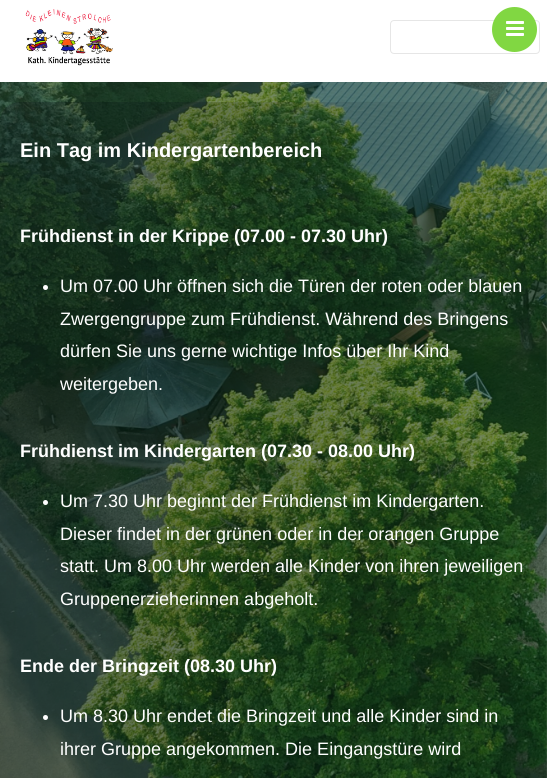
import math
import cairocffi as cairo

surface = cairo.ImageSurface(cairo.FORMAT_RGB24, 547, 778)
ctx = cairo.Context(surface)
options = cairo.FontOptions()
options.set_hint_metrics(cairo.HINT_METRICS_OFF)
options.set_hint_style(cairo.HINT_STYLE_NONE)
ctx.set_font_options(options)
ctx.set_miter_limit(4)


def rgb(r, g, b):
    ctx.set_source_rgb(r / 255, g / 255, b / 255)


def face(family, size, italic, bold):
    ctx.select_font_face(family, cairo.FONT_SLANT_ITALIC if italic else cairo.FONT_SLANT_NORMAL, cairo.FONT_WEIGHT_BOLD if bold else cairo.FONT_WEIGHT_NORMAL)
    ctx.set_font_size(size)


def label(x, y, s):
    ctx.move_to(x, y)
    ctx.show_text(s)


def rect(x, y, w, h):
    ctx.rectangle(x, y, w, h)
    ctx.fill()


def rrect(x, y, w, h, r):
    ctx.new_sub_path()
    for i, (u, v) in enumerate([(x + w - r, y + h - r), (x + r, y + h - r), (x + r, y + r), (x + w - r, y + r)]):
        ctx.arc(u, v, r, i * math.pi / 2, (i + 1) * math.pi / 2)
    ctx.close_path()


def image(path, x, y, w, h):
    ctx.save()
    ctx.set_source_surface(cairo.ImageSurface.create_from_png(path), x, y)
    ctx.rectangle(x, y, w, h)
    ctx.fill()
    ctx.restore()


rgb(255, 255, 255)
ctx.paint()
image('image0.png', 0, 82, 547, 696)
image('image1.png', 25, 9, 88, 57)
rrect(390.5, 20.5, 149, 33, 3.5)
rgb(230, 230, 230)
ctx.set_line_width(1)
ctx.stroke()
rgb(129, 215, 66)
ctx.arc(514.5, 29.5, 22.5, 0, 2 * math.pi)
ctx.fill()
image('image2.png', 506, 21, 18, 15)
ctx.set_source_rgba(0.047, 0.192, 0.09, 0.56)
rect(0, 82, 547, 696)
gradient = cairo.LinearGradient(0, 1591, 547, 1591)
gradient.add_color_stop_rgba(0, 0, 0.012, 0.067, 0.22)
gradient.add_color_stop_rgba(1, 0, 0.012, 0.067, 0)
ctx.set_source(gradient)
rrect(0, 102, 547, 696, 20)
ctx.fill()
face('Liberation Sans', 20, 0, 1)
rgb(255, 255, 255)
label(20, 157, 'Ein Tag im Kindergartenbereich')
face('Liberation Sans', 18, 0, 1)
label(20, 242, 'Frühdienst in der Krippe (07.00 - 07.30 Uhr)')
ctx.new_path()
ctx.arc(45.5, 287.5, 2.5, 0, 2 * math.pi)
ctx.fill()
face('Liberation Sans', 18, 0, 0)
label(60, 292, 'Um 07.00 Uhr öffnen sich die Türen der roten oder blauen')
label(60, 325, 'Zwergengruppe zum Frühdienst. Während des Bringens')
label(60, 357, 'dürfen Sie uns gerne wichtige Infos über Ihr Kind')
label(60, 390, 'weitergeben.')
face('Liberation Sans', 18, 0, 1)
label(20, 457, 'Frühdienst im Kindergarten (07.30 - 08.00 Uhr)')
ctx.new_path()
ctx.arc(45.5, 502.5, 2.5, 0, 2 * math.pi)
ctx.fill()
face('Liberation Sans', 18, 0, 0)
label(60, 507, 'Um 7.30 Uhr beginnt der Frühdienst im Kindergarten.')
label(60, 540, 'Dieser findet in der grünen oder in der orangen Gruppe')
label(60, 572, 'statt. Um 8.00 Uhr werden alle Kinder von ihren jeweiligen')
label(60, 605, 'Gruppenerzieherinnen abgeholt.')
face('Liberation Sans', 18, 0, 1)
label(20, 672, 'Ende der Bringzeit (08.30 Uhr)')
ctx.new_path()
ctx.arc(45.5, 717.5, 2.5, 0, 2 * math.pi)
ctx.fill()
face('Liberation Sans', 18, 0, 0)
label(60, 722, 'Um 8.30 Uhr endet die Bringzeit und alle Kinder sind in')
label(60, 755, 'ihrer Gruppe angekommen. Die Eingangstüre wird')
surface.write_to_png('render.png')
